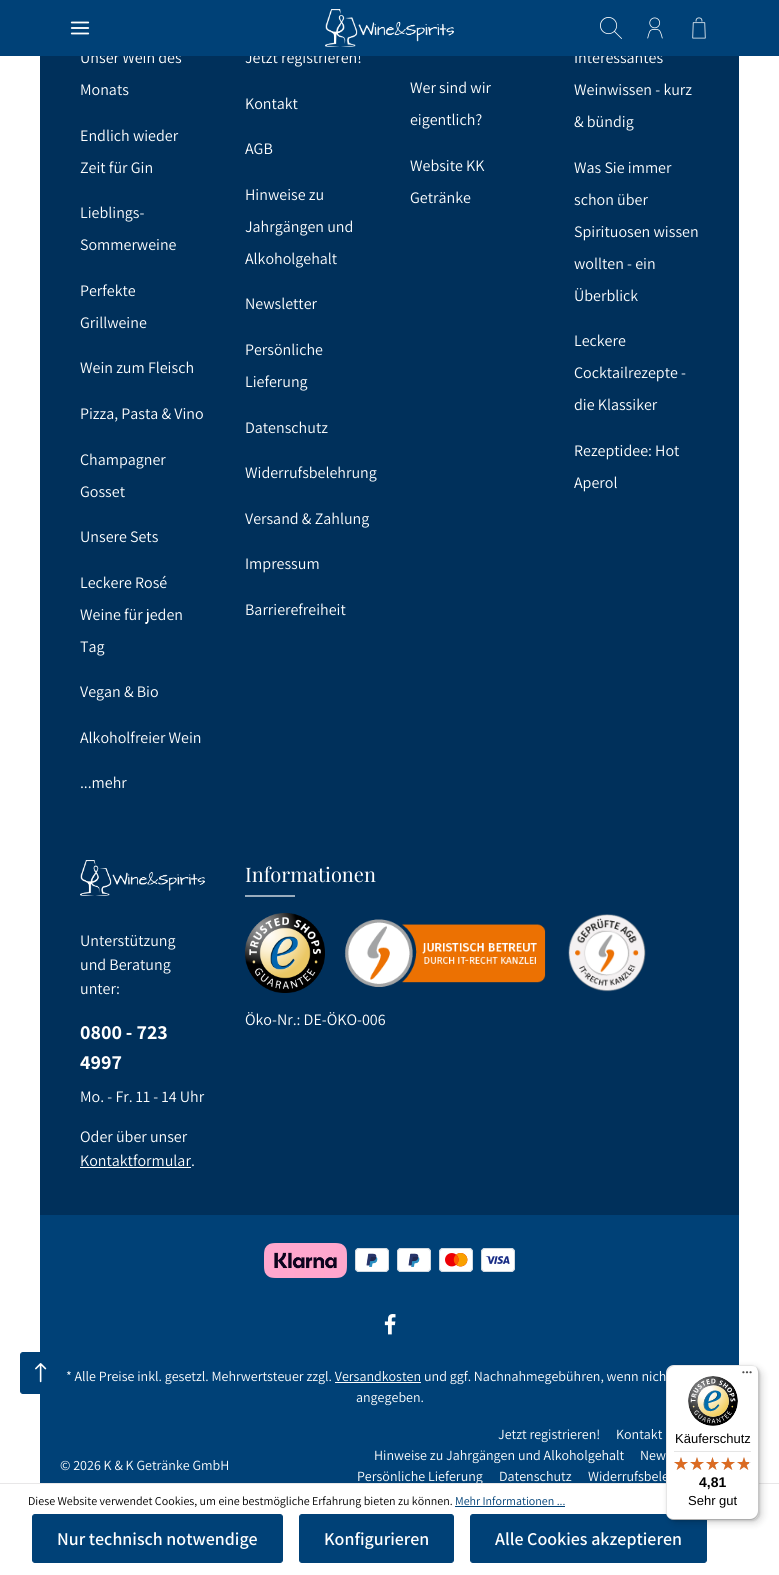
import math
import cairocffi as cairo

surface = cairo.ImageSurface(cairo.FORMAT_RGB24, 779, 1575)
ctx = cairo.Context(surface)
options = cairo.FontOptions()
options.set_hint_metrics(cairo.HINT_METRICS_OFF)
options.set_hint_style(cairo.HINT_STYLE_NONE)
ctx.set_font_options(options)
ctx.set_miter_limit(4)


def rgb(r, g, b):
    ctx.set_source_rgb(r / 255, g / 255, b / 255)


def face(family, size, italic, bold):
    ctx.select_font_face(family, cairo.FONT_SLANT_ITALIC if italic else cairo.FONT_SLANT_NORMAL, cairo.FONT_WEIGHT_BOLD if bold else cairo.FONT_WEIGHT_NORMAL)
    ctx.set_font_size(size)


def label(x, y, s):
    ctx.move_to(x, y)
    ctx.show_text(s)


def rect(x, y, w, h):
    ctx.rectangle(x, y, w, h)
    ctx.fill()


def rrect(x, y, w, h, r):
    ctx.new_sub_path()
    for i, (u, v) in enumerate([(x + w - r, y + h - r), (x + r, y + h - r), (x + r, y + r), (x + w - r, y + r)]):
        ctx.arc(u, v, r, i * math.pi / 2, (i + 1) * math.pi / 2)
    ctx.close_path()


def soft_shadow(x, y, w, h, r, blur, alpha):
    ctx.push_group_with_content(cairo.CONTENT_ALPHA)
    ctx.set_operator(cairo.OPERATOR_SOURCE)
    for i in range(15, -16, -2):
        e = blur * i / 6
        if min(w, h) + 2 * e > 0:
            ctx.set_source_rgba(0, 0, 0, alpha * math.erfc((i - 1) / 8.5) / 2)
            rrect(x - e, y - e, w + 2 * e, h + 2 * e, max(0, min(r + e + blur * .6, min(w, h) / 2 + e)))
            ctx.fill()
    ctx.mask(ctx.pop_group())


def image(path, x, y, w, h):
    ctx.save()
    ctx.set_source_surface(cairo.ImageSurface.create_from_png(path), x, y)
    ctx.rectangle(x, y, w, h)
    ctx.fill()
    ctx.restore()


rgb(255, 255, 255)
ctx.paint()
rgb(0, 65, 119)
rect(40, 1215, 699, 268)
rrect(20.5, 1352.5, 41, 41, 2.5)
ctx.fill_preserve()
ctx.set_line_width(1)
ctx.stroke()
image('image0.png', 35, 1363, 12, 20)
rgb(0, 48, 91)
rect(40, 56, 699, 1159)
face('Assistant ExtraLight', 16, 0, 0)
rgb(255, 255, 255)
label(80, 63, 'Unser Wein des')
label(245, 63, 'Jetzt registrieren!')
label(574, 63, 'Interessantes')
rgb(0, 65, 119)
rect(0, 0, 779, 56)
image('image1.png', 70, 21, 20, 14)
image('image2.png', 325, 9, 129, 38)
image('image3.png', 600, 17, 22, 22)
image('image4.png', 647, 17, 16, 22)
image('image5.png', 692, 17, 14, 22)
rgb(255, 255, 255)
label(80, 95, 'Monats')
label(80, 141, 'Endlich wieder')
label(80, 173, 'Zeit für Gin')
label(80, 218, 'Lieblings-')
label(80, 250, 'Sommerweine')
label(80, 296, 'Perfekte')
label(80, 328, 'Grillweine')
label(80, 373, 'Wein zum Fleisch')
label(80, 419, 'Pizza, Pasta & Vino')
label(80, 465, 'Champagner')
label(80, 497, 'Gosset')
label(80, 542, 'Unsere Sets')
label(80, 588, 'Leckere Rosé')
label(80, 620, 'Weine für jeden')
label(80, 652, 'Tag')
label(80, 697, 'Vegan & Bio')
label(80, 743, 'Alkoholfreier Wein')
label(80, 788, '...mehr')
label(245, 109, 'Kontakt')
label(245, 154, 'AGB')
label(245, 200, 'Hinweise zu')
label(245, 232, 'Jahrgängen und')
label(245, 264, 'Alkoholgehalt')
label(245, 309, 'Newsletter')
label(245, 355, 'Persönliche')
label(245, 387, 'Lieferung')
label(245, 433, 'Datenschutz')
label(245, 478, 'Widerrufsbelehrung')
label(245, 524, 'Versand & Zahlung')
label(245, 569, 'Impressum')
label(245, 615, 'Barrierefreiheit')
label(410, 93, 'Wer sind wir')
label(410, 125, 'eigentlich?')
label(410, 171, 'Website KK')
label(410, 203, 'Getränke')
label(574, 95, 'Weinwissen - kurz')
label(574, 127, '& bündig')
label(574, 173, 'Was Sie immer')
label(574, 205, 'schon über')
label(574, 237, 'Spirituosen wissen')
label(574, 269, 'wollten - ein')
label(574, 301, 'Überblick')
label(574, 346, 'Leckere')
label(574, 378, 'Cocktailrezepte -')
label(574, 410, 'die Klassiker')
label(574, 456, 'Rezeptidee: Hot')
label(574, 488, 'Aperol')
image('image6.png', 80, 860, 125, 36)
label(80, 946, 'Unterstützung')
label(80, 970, 'und Beratung')
label(80, 994, 'unter:')
face('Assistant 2 ExtraLight', 20, 0, 0)
label(80, 1039, '0800 - 723')
label(80, 1069, '4997')
face('Assistant ExtraLight', 16, 0, 0)
label(80, 1102, 'Mo. - Fr. 11 - 14 Uhr')
label(80, 1142, 'Oder über unser')
label(80, 1166, 'Kontaktformular')
rect(80, 1167, 111, 1)
label(191, 1166, '.')
face('Playfair Display', 20, 0, 0)
label(245, 882, 'Informationen')
rgb(153, 172, 189)
rect(245, 895, 50, 2)
image('image7.png', 245, 913, 80, 80)
image('image8.png', 344, 919, 202, 68)
image('image9.png', 568, 914, 78, 78)
face('Assistant ExtraLight', 16, 0, 0)
rgb(255, 255, 255)
label(245, 1025, 'Öko-Nr.: DE-ÖKO-006')
image('image10.png', 264, 1243, 83, 35)
image('image11.png', 355, 1248, 34, 24)
image('image11.png', 397, 1248, 34, 24)
image('image12.png', 439, 1248, 76, 24)
image('image13.png', 384, 1314, 12, 21)
face('Assistant ExtraLight', 14, 0, 0)
label(66, 1381, '* Alle Preise inkl. gesetzl. Mehrwertsteuer zzgl. Versandkosten')
label(424, 1381, 'und ggf. Nachnahmegebühren, wenn nich')
rect(335, 1382, 86, 1)
label(356, 1402, 'angegeben.')
label(60, 1470, '© 2026 K & K Getränke GmbH')
label(498, 1439, 'Jetzt registrieren!')
label(616, 1439, 'Kontakt')
label(374, 1460, 'Hinweise zu Jahrgängen und Alkoholgehalt')
label(640, 1460, 'New')
label(357, 1481, 'Persönliche Lieferung')
label(499, 1481, 'Datenschutz')
label(588, 1481, 'Widerrufsbele')
rgb(232, 231, 232)
rect(0, 1483, 779, 1)
rgb(0, 65, 119)
rrect(470.5, 1514.5, 236, 48, 2.5)
ctx.fill_preserve()
ctx.stroke()
rgb(0, 0, 0)
soft_shadow(669, 1368, 93, 155, 8, 4, 0.15)
soft_shadow(667, 1366, 93, 155, 8, 1, 0.15)
rgb(255, 255, 255)
rrect(666, 1365, 93, 155, 8)
ctx.fill()
ctx.set_source_rgba(0, 0, 0, 0.1)
ctx.new_path()
ctx.move_to(675, 1366)
ctx.line_to(752, 1366)
ctx.curve_to(754, 1366, 756, 1367, 758, 1369)
ctx.curve_to(756, 1367, 754, 1365, 751, 1365)
ctx.line_to(674, 1365)
ctx.curve_to(670, 1365, 666, 1369, 666, 1373)
ctx.line_to(666, 1512)
ctx.curve_to(666, 1515, 668, 1517, 670, 1519)
ctx.curve_to(668, 1517, 667, 1515, 667, 1513)
ctx.line_to(667, 1374)
ctx.curve_to(667, 1370, 671, 1366, 675, 1366)
ctx.close_path()
ctx.fill()
ctx.set_source_rgba(0, 0, 0, 0.2)
ctx.new_path()
ctx.move_to(667, 1516)
ctx.curve_to(669, 1518, 671, 1520, 674, 1520)
ctx.line_to(751, 1520)
ctx.curve_to(755, 1520, 759, 1516, 759, 1512)
ctx.line_to(759, 1373)
ctx.curve_to(759, 1370, 757, 1368, 755, 1366)
ctx.curve_to(757, 1368, 758, 1370, 758, 1372)
ctx.line_to(758, 1511)
ctx.curve_to(758, 1515, 754, 1519, 750, 1519)
ctx.line_to(673, 1519)
ctx.curve_to(671, 1519, 669, 1518, 667, 1516)
ctx.close_path()
ctx.fill()
ctx.set_source_rgba(0.196, 0.196, 0.196, 0.2)
ctx.new_path()
ctx.move_to(668, 1517)
ctx.curve_to(669, 1519, 672, 1520, 674, 1520)
ctx.line_to(751, 1520)
ctx.curve_to(755, 1520, 759, 1516, 759, 1512)
ctx.line_to(759, 1373)
ctx.curve_to(759, 1371, 758, 1368, 756, 1367)
ctx.curve_to(757, 1368, 758, 1370, 758, 1372)
ctx.line_to(758, 1511)
ctx.curve_to(758, 1516, 755, 1519, 750, 1519)
ctx.line_to(673, 1519)
ctx.curve_to(671, 1519, 669, 1518, 668, 1517)
ctx.close_path()
ctx.fill()
ctx.set_source_rgba(1, 1, 1, 0.3)
ctx.new_path()
ctx.move_to(750, 1520)
ctx.line_to(751, 1520)
ctx.curve_to(755, 1520, 759, 1516, 759, 1512)
ctx.line_to(759, 1373)
ctx.curve_to(759, 1371, 758, 1368, 756, 1367)
ctx.curve_to(757, 1368, 758, 1370, 758, 1372)
ctx.line_to(758, 1512)
ctx.curve_to(758, 1516, 755, 1520, 750, 1520)
ctx.close_path()
ctx.fill()
image('image14.png', 742, 1371, 10, 3)
image('image15.png', 688, 1376, 50, 50)
face('Liberation Sans', 13, 0, 0)
rgb(0, 0, 0)
label(675, 1443, 'Käuferschutz')
rgb(229, 229, 229)
rect(674, 1451, 77, 1)
image('image16.png', 674, 1457, 14, 13)
image('image16.png', 690, 1457, 14, 13)
image('image17.png', 706, 1457, 13, 13)
image('image16.png', 721, 1457, 14, 13)
image('image16.png', 737, 1457, 14, 13)
image('image18.png', 674, 1457, 14, 13)
image('image18.png', 690, 1457, 14, 13)
image('image19.png', 706, 1457, 13, 13)
image('image18.png', 721, 1457, 14, 13)
image('image20.png', 737, 1457, 12, 13)
face('Liberation Sans', 14, 0, 1)
rgb(0, 0, 0)
label(699, 1487, '4,81')
face('Liberation Sans', 13, 0, 0)
label(688, 1505, 'Sehr gut')
face('Assistant ExtraLight', 12, 0, 0)
label(28, 1505, 'Diese Website verwendet Cookies, um eine bestmögliche Erfahrung bieten zu können.')
rgb(0, 65, 119)
label(455, 1505, 'Mehr Informationen ...')
rect(455, 1506, 110, 1)
rrect(32.5, 1514.5, 250, 48, 2.5)
ctx.fill_preserve()
ctx.stroke()
face('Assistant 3 ExtraLight', 18, 0, 0)
rgb(255, 255, 255)
label(57, 1545, 'Nur technisch notwendige')
rgb(0, 65, 119)
rrect(299.5, 1514.5, 154, 48, 2.5)
ctx.fill_preserve()
ctx.stroke()
rgb(255, 255, 255)
label(324, 1545, 'Konfigurieren')
label(495, 1545, 'Alle Cookies akzeptieren')
surface.write_to_png('render.png')
